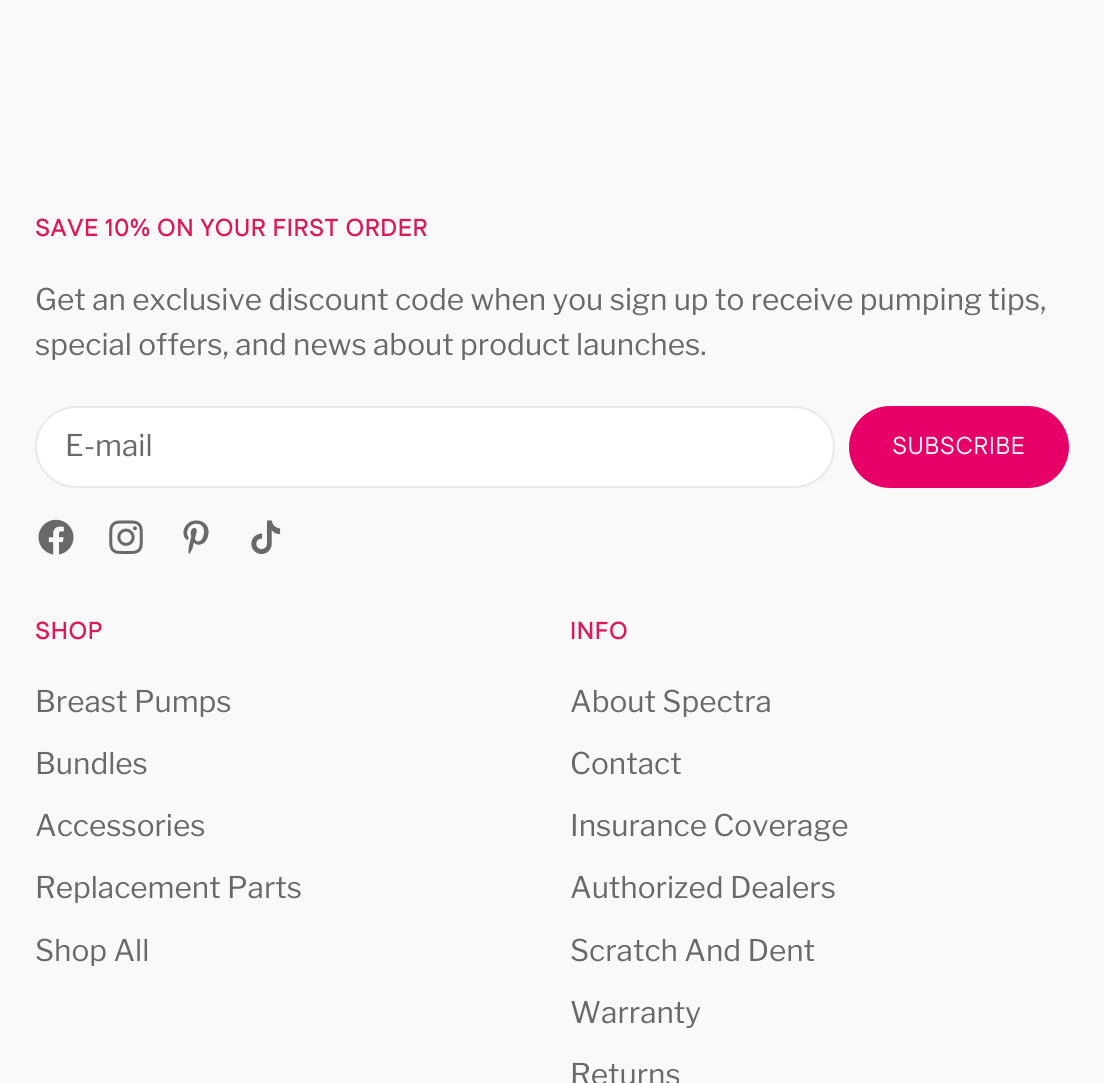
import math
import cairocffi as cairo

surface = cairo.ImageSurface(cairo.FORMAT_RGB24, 1104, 1083)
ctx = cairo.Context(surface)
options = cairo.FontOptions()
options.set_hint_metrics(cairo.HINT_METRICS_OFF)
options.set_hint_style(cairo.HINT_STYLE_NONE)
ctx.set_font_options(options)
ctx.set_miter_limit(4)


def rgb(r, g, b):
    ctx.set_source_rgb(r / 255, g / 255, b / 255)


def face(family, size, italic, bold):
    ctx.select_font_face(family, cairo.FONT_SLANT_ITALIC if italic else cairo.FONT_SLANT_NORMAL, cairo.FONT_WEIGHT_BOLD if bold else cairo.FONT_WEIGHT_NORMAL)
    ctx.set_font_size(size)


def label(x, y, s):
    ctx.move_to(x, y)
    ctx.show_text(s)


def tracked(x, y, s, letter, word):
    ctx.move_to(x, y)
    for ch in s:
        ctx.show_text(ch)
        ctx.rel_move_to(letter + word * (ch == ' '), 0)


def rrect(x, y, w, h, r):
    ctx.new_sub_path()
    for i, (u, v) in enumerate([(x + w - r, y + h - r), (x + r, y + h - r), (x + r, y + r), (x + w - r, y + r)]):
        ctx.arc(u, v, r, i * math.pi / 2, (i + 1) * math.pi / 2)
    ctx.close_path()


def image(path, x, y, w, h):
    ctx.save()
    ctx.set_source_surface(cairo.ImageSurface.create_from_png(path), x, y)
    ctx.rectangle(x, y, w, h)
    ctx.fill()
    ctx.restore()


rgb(249, 249, 249)
ctx.paint()
face('Fustat SemiBold', 24.5, 0, 0)
rgb(219, 26, 90)
tracked(35, 236, 'SAVE 10% ON YOUR FIRST ORDER', 0.6, 0)
face('Libre Franklin Thin', 29.75, 0, 0)
rgb(105, 105, 105)
label(35, 310, 'Get an exclusive discount code when you sign up to receive pumping tips,')
label(35, 355, 'special offers, and news about product launches.')
rgb(255, 255, 255)
rrect(35, 406, 800, 82, 41)
ctx.fill()
rrect(36, 407, 798, 80, 40)
ctx.set_source_rgba(0.412, 0.412, 0.412, 0.15)
ctx.stroke()
rgb(105, 105, 105)
label(65, 456, 'E-mail')
rgb(230, 0, 103)
rrect(849, 406, 220, 82, 41)
ctx.fill()
face('Fustat', 24.5, 0, 0)
rgb(255, 255, 255)
tracked(892, 454, 'SUBSCRIBE', 0.75, 0)
image('image0.png', 38, 519, 36, 36)
image('image1.png', 109, 520, 34, 35)
image('image2.png', 183, 520, 26, 34)
image('image3.png', 251, 520, 30, 34)
face('Fustat SemiBold', 24.5, 0, 0)
rgb(219, 26, 90)
tracked(35, 639, 'SHOP', 0.6, 0)
face('Libre Franklin Thin', 29.75, 0, 0)
rgb(105, 105, 105)
label(35, 712, 'Breast Pumps')
label(35, 774, 'Bundles')
label(35, 836, 'Accessories')
label(35, 898, 'Replacement Parts')
label(35, 961, 'Shop All')
face('Fustat SemiBold', 24.5, 0, 0)
rgb(219, 26, 90)
tracked(570, 639, 'INFO', 0.6, 0)
face('Libre Franklin Thin', 29.75, 0, 0)
rgb(105, 105, 105)
label(570, 712, 'About Spectra')
label(570, 774, 'Contact')
label(570, 836, 'Insurance Coverage')
label(570, 898, 'Authorized Dealers')
label(570, 961, 'Scratch And Dent')
label(570, 1023, 'Warranty')
label(570, 1085, 'Returns')
surface.write_to_png('render.png')
